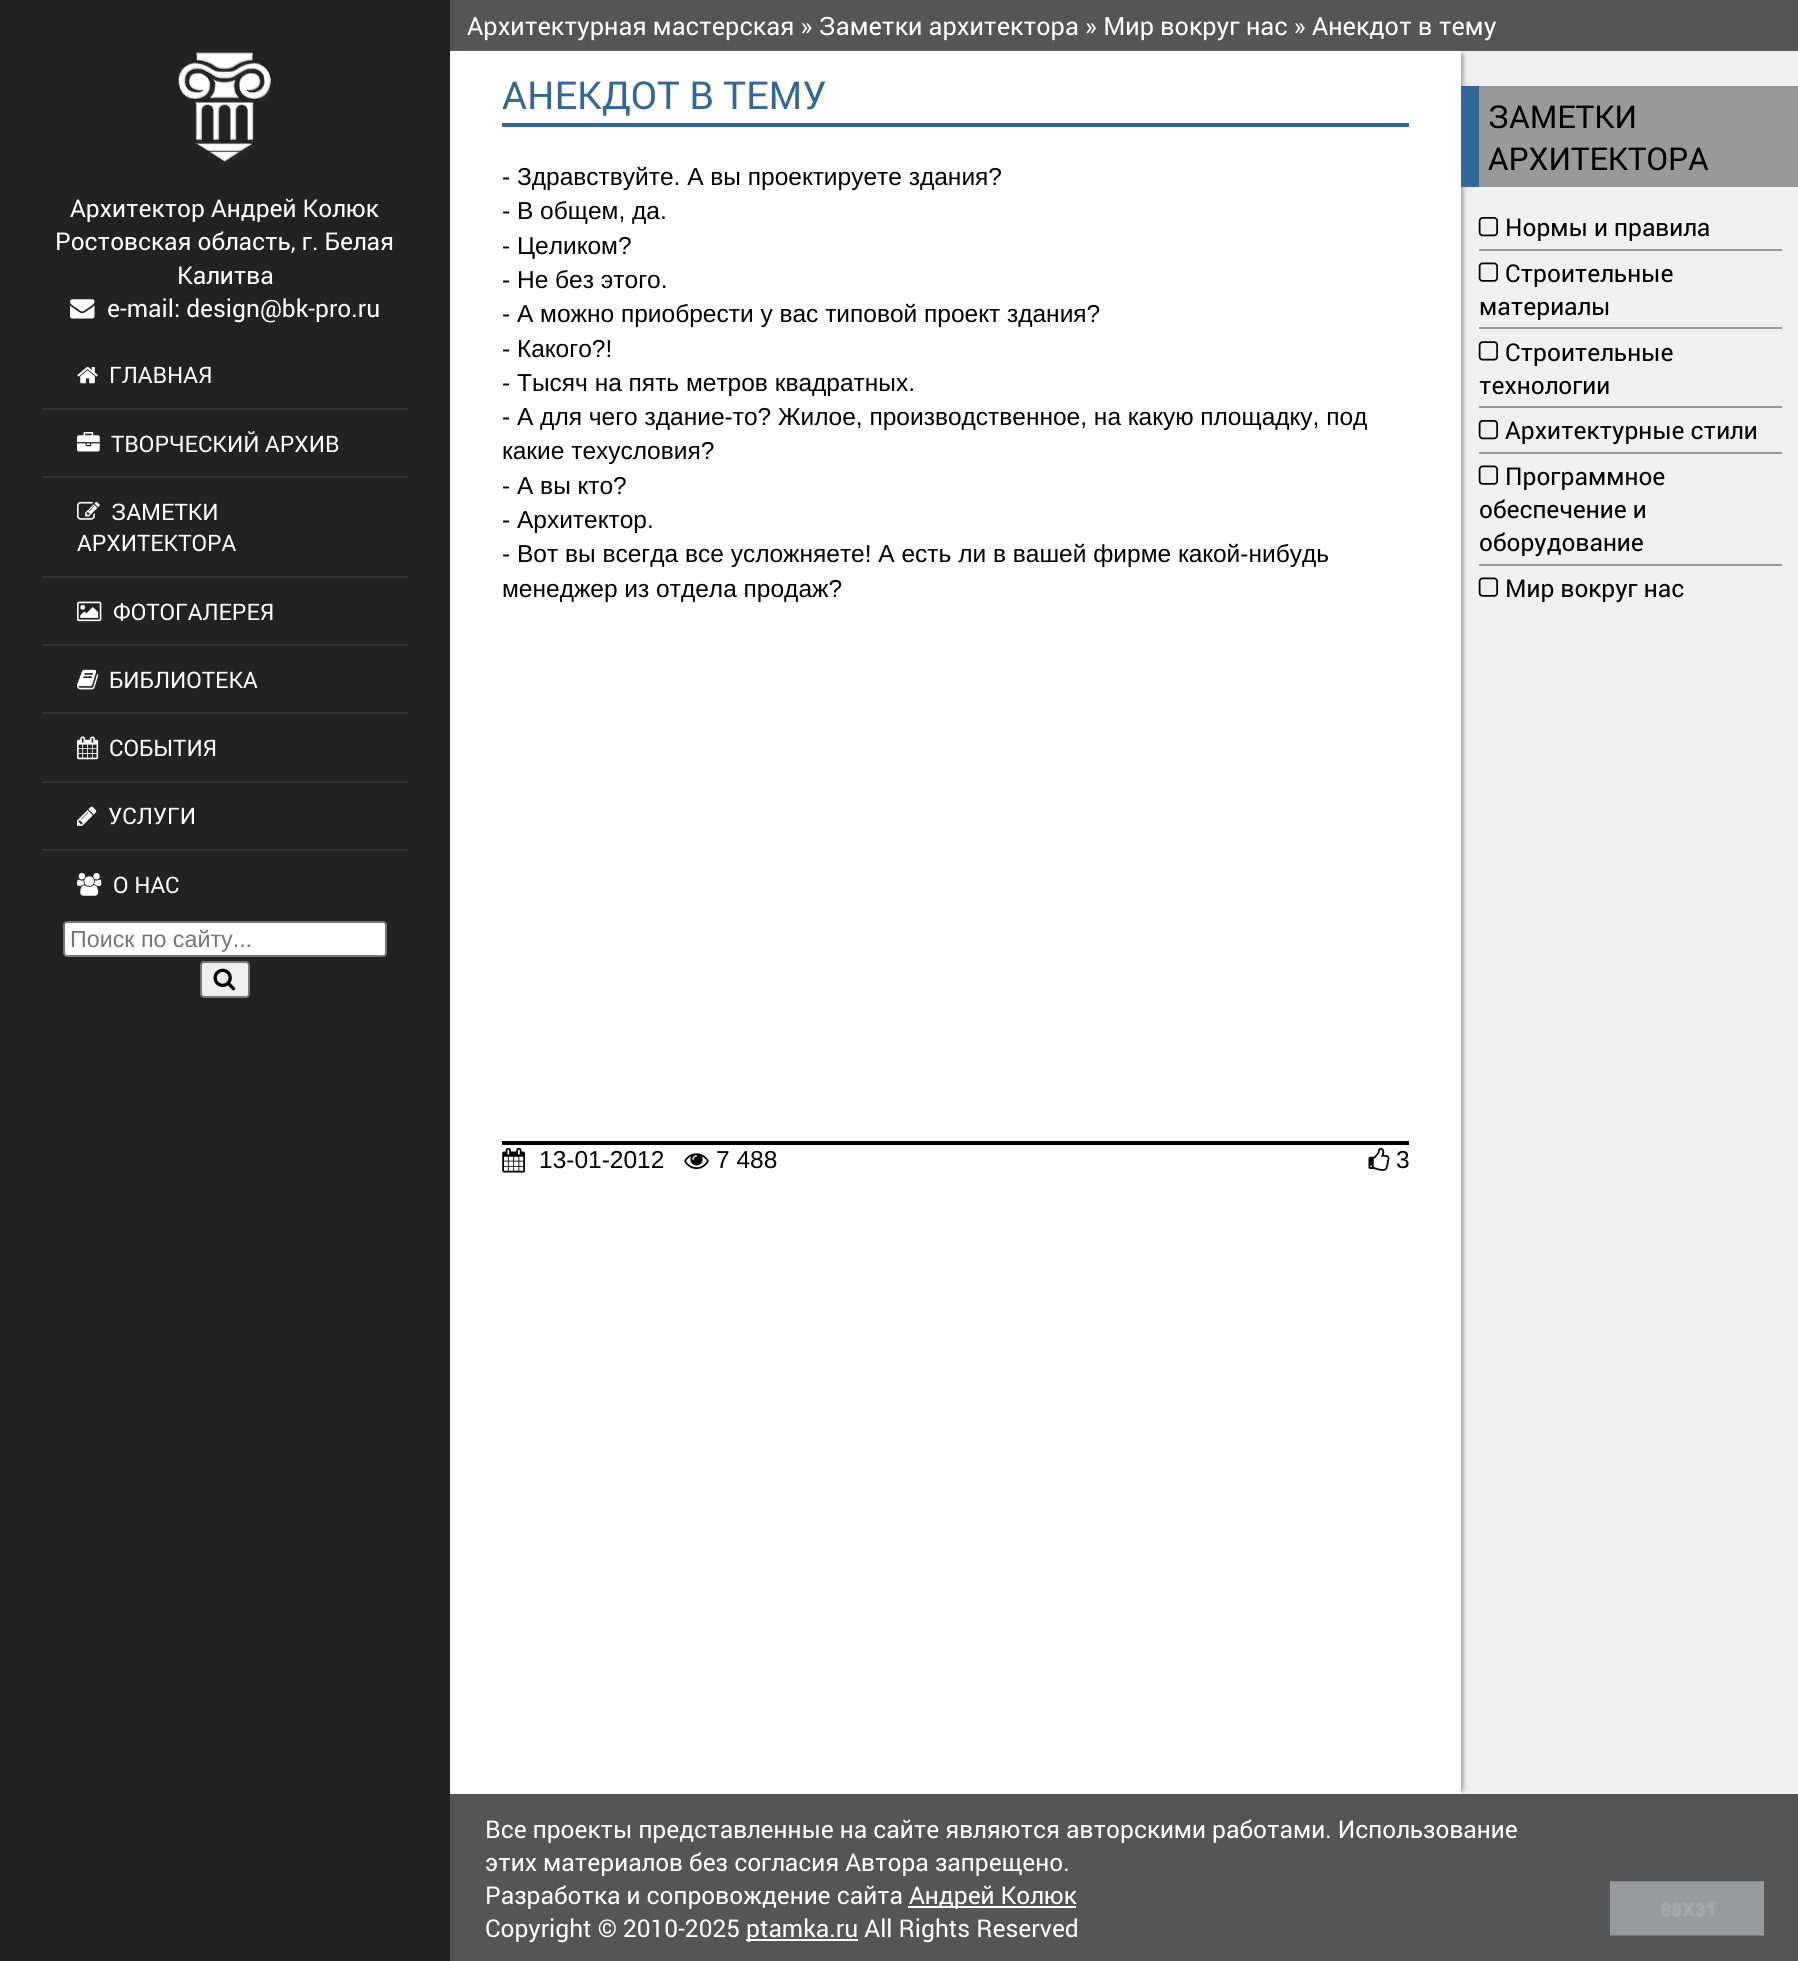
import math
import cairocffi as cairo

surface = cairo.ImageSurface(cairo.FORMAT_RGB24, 1798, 1961)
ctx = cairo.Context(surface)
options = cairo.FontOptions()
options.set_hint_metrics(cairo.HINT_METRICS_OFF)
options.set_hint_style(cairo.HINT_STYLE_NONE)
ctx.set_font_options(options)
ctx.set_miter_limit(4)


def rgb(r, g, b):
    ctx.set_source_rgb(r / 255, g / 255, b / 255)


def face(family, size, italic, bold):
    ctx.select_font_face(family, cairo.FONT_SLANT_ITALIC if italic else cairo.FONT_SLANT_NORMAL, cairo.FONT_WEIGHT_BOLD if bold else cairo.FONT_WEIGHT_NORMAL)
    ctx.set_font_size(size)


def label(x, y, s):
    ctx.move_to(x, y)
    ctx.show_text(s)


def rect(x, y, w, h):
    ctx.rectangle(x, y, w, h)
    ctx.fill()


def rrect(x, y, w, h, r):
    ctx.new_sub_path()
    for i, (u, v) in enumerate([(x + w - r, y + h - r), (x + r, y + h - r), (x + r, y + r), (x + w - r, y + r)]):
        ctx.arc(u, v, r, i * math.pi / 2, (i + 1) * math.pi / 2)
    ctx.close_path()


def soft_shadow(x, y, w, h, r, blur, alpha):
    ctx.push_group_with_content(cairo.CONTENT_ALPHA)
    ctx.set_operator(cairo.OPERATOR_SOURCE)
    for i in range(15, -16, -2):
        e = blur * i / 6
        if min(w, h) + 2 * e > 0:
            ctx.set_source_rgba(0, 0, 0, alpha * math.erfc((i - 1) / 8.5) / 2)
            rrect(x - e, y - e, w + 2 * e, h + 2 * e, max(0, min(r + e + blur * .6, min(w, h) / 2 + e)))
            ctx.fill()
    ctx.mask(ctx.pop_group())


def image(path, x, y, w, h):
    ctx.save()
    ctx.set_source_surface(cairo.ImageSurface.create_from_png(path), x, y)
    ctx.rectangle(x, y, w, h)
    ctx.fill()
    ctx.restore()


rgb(240, 240, 240)
ctx.paint()
rgb(34, 34, 34)
rect(0, 0, 450, 1961)
image('image0.png', 178, 52, 95, 112)
face('Roboto', 24.5, 0, 0)
rgb(255, 255, 255)
label(70, 217, 'Архитектор Андрей Колюк')
label(55, 250, 'Ростовская область, г. Белая')
label(177, 284, 'Калитва')
image('image1.png', 70, 299, 25, 20)
label(107, 317, 'e-mail: design@bk-pro.ru')
rgb(51, 51, 51)
rect(42, 408, 366, 2)
image('image2.png', 77, 367, 21, 17)
face('Roboto', 22.75, 0, 0)
rgb(255, 255, 255)
label(109, 383, 'ГЛАВНАЯ')
rgb(51, 51, 51)
rect(42, 476, 366, 2)
image('image3.png', 77, 432, 23, 20)
rgb(255, 255, 255)
label(111, 452, 'ТВОРЧЕСКИЙ АРХИВ')
rgb(51, 51, 51)
rect(42, 576, 366, 2)
image('image4.png', 77, 501, 23, 19)
rgb(255, 255, 255)
label(111, 520, 'ЗАМЕТКИ')
label(77, 551, 'АРХИТЕКТОРА')
rgb(51, 51, 51)
rect(42, 644, 366, 2)
image('image5.png', 77, 601, 25, 21)
rgb(255, 255, 255)
label(113, 620, 'ФОТОГАЛЕРЕЯ')
rgb(51, 51, 51)
rect(42, 712, 366, 2)
image('image6.png', 77, 669, 22, 21)
rgb(255, 255, 255)
label(109, 688, 'БИБЛИОТЕКА')
rgb(51, 51, 51)
rect(42, 781, 366, 2)
image('image7.png', 77, 736, 22, 24)
rgb(255, 255, 255)
label(109, 756, 'СОБЫТИЯ')
rgb(51, 51, 51)
rect(42, 849, 366, 2)
image('image8.png', 77, 806, 20, 20)
rgb(255, 255, 255)
label(108, 824, 'УСЛУГИ')
image('image9.png', 77, 873, 25, 23)
label(113, 893, 'О НАС')
rrect(64, 922, 322, 34, 3)
ctx.fill_preserve()
rgb(118, 118, 118)
ctx.stroke()
face('Liberation Sans', 23.25, 0, 0)
rgb(117, 117, 117)
label(70, 947, 'Поиск по сайту...')
rgb(239, 239, 239)
rrect(201, 962, 48, 35, 3)
ctx.fill_preserve()
rgb(118, 118, 118)
ctx.stroke()
image('image10.png', 213, 968, 23, 23)
rgb(85, 85, 85)
rect(450, 0, 1348, 51)
face('Roboto', 25.2, 0, 0)
rgb(255, 255, 255)
label(467, 35, 'Архитектурная мастерская » Заметки архитектора » Мир вокруг нас » Анекдот в тему')
rgb(153, 153, 153)
soft_shadow(459, 54, 1004, 1736, 0, 2.5, 1)
rgb(255, 255, 255)
rect(450, 51, 1011, 1743)
rgb(51, 102, 153)
rect(502, 123, 907, 4)
face('Roboto', 38.5, 0, 0)
label(502, 109, 'АНЕКДОТ В ТЕМУ')
face('Liberation Sans', 24.5, 0, 0)
rgb(0, 0, 0)
label(502, 185, '- Здравствуйте. А вы проектируете здания?')
label(502, 219, '- В общем, да.')
label(502, 254, '- Целиком?')
label(502, 288, '- Не без этого.')
label(502, 322, '- А можно приобрести у вас типовой проект здания?')
label(502, 357, '- Какого?!')
label(502, 391, '- Тысяч на пять метров квадратных.')
label(502, 425, '- А для чего здание-то? Жилое, производственное, на какую площадку, под')
label(502, 459, 'какие техусловия?')
label(502, 494, '- А вы кто?')
label(502, 528, '- Архитектор.')
label(502, 562, '- Вот вы всегда все усложняете! А есть ли в вашей фирме какой-нибудь')
label(502, 597, 'менеджер из отдела продаж?')
rect(502, 1141, 907, 4)
image('image11.png', 502, 1148, 23, 25)
label(539, 1168, '13-01-2012')
image('image12.png', 684, 1153, 25, 16)
label(716, 1168, '7 488')
image('image13.png', 1368, 1148, 22, 23)
label(1396, 1168, '3')
rgb(153, 153, 153)
rect(1479, 86, 319, 101)
rgb(51, 102, 153)
rect(1461, 86, 18, 101)
face('Roboto', 31.5, 0, 0)
rgb(0, 0, 0)
label(1488, 128, 'ЗАМЕТКИ')
label(1488, 170, 'АРХИТЕКТОРА')
rgb(153, 153, 153)
rect(1479, 249, 303, 2)
image('image14.png', 1478, 217, 20, 20)
face('Roboto', 24.5, 0, 0)
rgb(0, 0, 0)
label(1505, 236, 'Нормы и правила')
rgb(153, 153, 153)
rect(1479, 327, 303, 2)
image('image15.png', 1478, 262, 20, 20)
rgb(0, 0, 0)
label(1505, 282, 'Строительные')
label(1479, 315, 'материалы')
rgb(153, 153, 153)
rect(1479, 406, 303, 2)
image('image16.png', 1478, 341, 20, 20)
rgb(0, 0, 0)
label(1505, 361, 'Строительные')
label(1479, 394, 'технологии')
rgb(153, 153, 153)
rect(1479, 452, 303, 2)
image('image14.png', 1478, 420, 20, 20)
rgb(0, 0, 0)
label(1505, 439, 'Архитектурные стили')
rgb(153, 153, 153)
rect(1479, 564, 303, 2)
image('image15.png', 1478, 465, 20, 20)
rgb(0, 0, 0)
label(1505, 485, 'Программное')
label(1479, 518, 'обеспечение и')
label(1479, 551, 'оборудование')
image('image15.png', 1478, 577, 20, 20)
label(1505, 597, 'Мир вокруг нас')
rgb(85, 85, 85)
rect(450, 1794, 1348, 167)
rgb(255, 255, 255)
label(485, 1838, 'Все проекты представленные на сайте являются авторскими работами. Использование')
label(485, 1871, 'этих материалов без согласия Автора запрещено.')
label(485, 1904, 'Разработка и сопровождение сайта')
rect(908, 1906, 168, 2)
label(909, 1904, 'Андрей Колюк')
label(485, 1937, 'Copyright © 2010-2025')
rect(746, 1939, 112, 2)
label(746, 1937, 'ptamka.ru All Rights Reserved')
image('image17.png', 1610, 1881, 154, 55)
surface.write_to_png('render.png')
